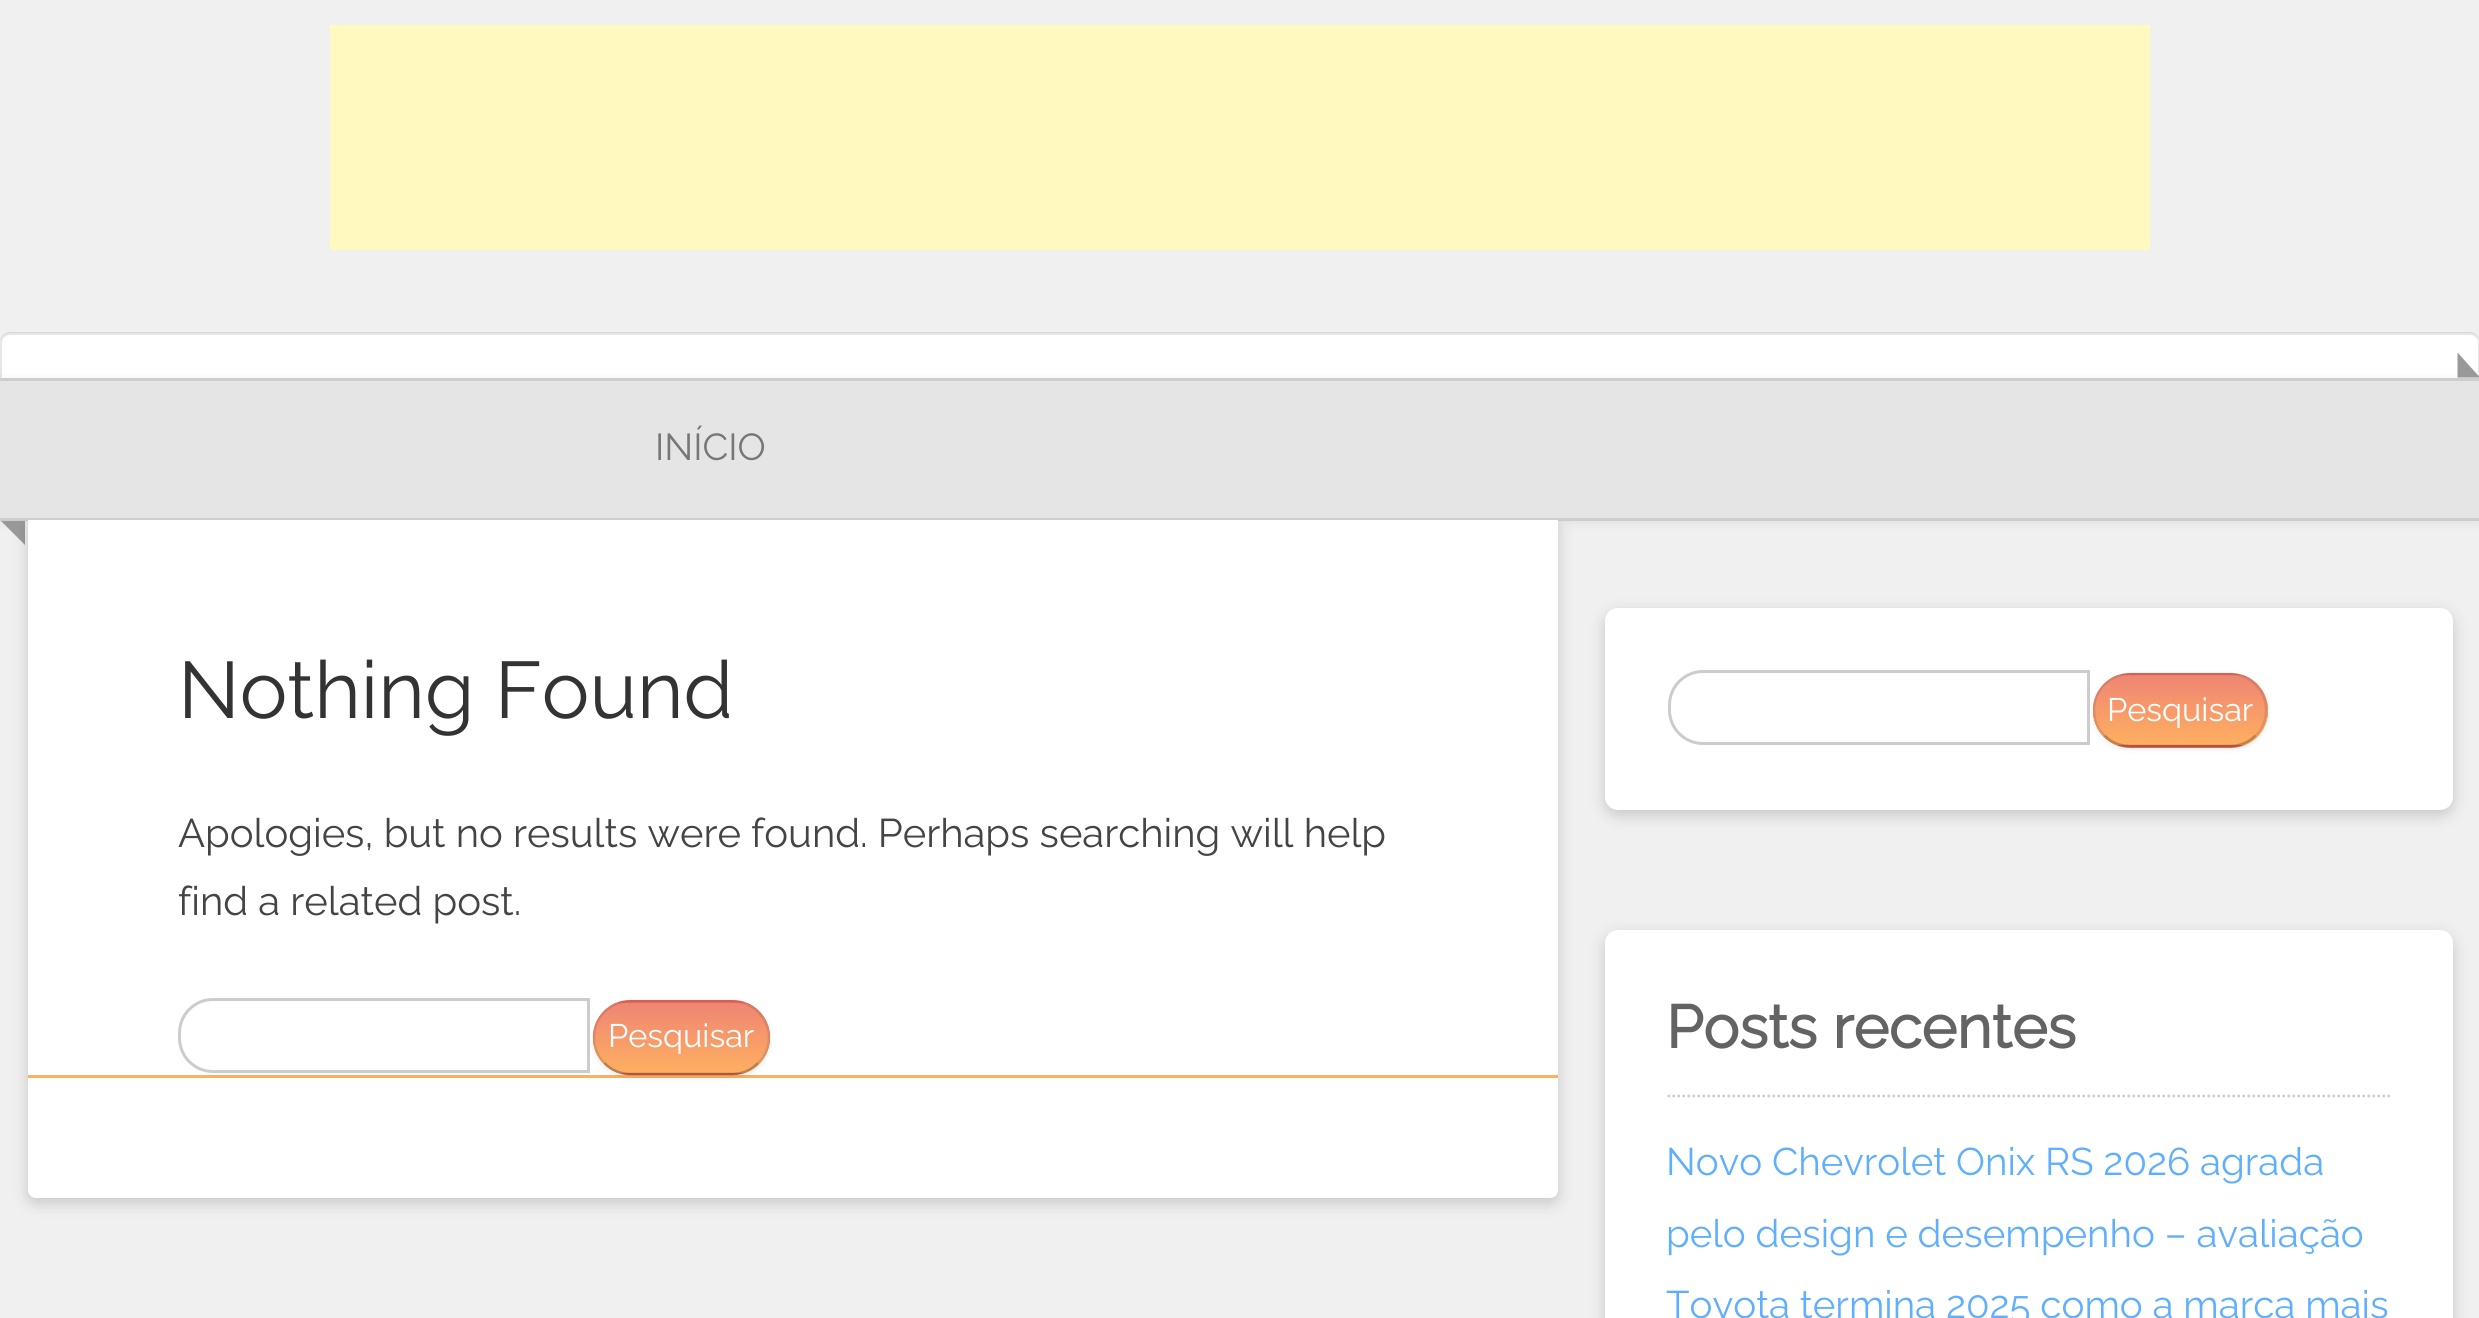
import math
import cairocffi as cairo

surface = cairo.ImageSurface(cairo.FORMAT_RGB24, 2479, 1318)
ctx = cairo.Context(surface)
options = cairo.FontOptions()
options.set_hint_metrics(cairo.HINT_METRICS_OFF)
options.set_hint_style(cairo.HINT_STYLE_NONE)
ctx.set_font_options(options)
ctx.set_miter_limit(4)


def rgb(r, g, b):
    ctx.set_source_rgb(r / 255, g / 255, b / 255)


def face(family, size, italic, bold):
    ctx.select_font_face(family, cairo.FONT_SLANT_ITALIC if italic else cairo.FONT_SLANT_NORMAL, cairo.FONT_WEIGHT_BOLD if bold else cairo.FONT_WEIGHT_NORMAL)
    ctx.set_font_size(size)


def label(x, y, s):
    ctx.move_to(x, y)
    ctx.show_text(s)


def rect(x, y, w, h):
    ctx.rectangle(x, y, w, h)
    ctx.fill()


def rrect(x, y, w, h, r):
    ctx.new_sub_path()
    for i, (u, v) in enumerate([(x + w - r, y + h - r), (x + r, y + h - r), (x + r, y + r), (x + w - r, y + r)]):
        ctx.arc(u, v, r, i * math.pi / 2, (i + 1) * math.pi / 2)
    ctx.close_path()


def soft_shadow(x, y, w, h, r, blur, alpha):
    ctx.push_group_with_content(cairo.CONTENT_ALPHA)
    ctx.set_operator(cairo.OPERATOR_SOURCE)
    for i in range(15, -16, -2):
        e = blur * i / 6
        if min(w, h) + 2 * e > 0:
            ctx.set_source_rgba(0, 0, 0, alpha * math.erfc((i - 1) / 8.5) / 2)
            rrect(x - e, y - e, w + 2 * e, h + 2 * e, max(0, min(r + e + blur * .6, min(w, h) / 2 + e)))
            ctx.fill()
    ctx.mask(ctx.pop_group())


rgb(240, 240, 240)
ctx.paint()
rgb(255, 249, 192)
rect(330, 25, 1820, 225)
rgb(255, 255, 255)
ctx.new_path()
ctx.move_to(10, 333)
ctx.line_to(2470, 333)
ctx.curve_to(2475.5, 333, 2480, 337.5, 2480, 343)
ctx.line_to(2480, 385)
ctx.line_to(0, 385)
ctx.line_to(0, 343)
ctx.curve_to(0, 337.5, 4.5, 333, 10, 333)
ctx.close_path()
ctx.fill()
ctx.set_source_rgba(0, 0, 0, 0.1)
ctx.set_fill_rule(cairo.FILL_RULE_EVEN_ODD)
ctx.new_path()
ctx.move_to(10, 332)
ctx.line_to(2470, 332)
ctx.curve_to(2476, 332, 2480, 337, 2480, 342)
ctx.line_to(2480, 385)
ctx.line_to(0, 385)
ctx.line_to(0, 342)
ctx.curve_to(0, 337, 4, 332, 10, 332)
ctx.close_path()
ctx.move_to(10, 335)
ctx.line_to(2470, 335)
ctx.curve_to(2474, 335, 2478, 338, 2478, 342)
ctx.line_to(2478, 385)
ctx.line_to(2, 385)
ctx.line_to(2, 342)
ctx.curve_to(2, 338, 6, 335, 10, 335)
ctx.close_path()
ctx.fill()
rgb(0, 0, 0)
soft_shadow(0, 380, 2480, 143, 0, 5, 0.07)
rgb(153, 153, 153)
ctx.set_fill_rule(cairo.FILL_RULE_WINDING)
ctx.new_path()
ctx.move_to(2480, 377.5)
ctx.line_to(2457.5, 377.5)
ctx.line_to(2457.5, 352.5)
ctx.close_path()
ctx.fill()
rgb(229, 229, 229)
rect(0, 381, 2479, 137)
rgb(205, 205, 205)
rect(0, 378, 2479, 3)
rgb(153, 153, 153)
ctx.new_path()
ctx.move_to(25, 520)
ctx.line_to(25, 545)
ctx.line_to(0, 520)
ctx.close_path()
ctx.fill()
rgb(205, 205, 205)
rect(0, 518, 2479, 3)
face('Raleway Thin', 37.5, 0, 0)
rgb(119, 119, 119)
label(655, 460, 'INÍCIO')
ctx.save()
ctx.rectangle(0, 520, 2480, 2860)
ctx.clip()
rgb(100, 100, 100)
soft_shadow(28, 523, 1530, 680, 8, 7.5, 0.3)
ctx.restore()
rgb(255, 255, 255)
ctx.new_path()
ctx.move_to(28, 520)
ctx.line_to(1558, 520)
ctx.line_to(1558, 1190)
ctx.curve_to(1558, 1194.5, 1554.5, 1198, 1550, 1198)
ctx.line_to(36, 1198)
ctx.curve_to(31.5, 1198, 28, 1194.5, 28, 1190)
ctx.close_path()
ctx.fill()
rgb(254, 175, 96)
rect(28, 1075, 1530, 3)
face('Raleway Thin', 80, 0, 0)
rgb(51, 51, 51)
label(178, 718, 'Nothing Found')
face('Raleway Thin', 40, 0, 0)
rgb(68, 68, 68)
label(178, 847, 'Apologies, but no results were found. Perhaps searching will help')
label(178, 915, 'find a related post.')
ctx.new_path()
ctx.move_to(213, 999.5)
ctx.line_to(588.5, 999.5)
ctx.line_to(588.5, 1071.5)
ctx.line_to(213, 1071.5)
ctx.curve_to(194.5, 1071.5, 179.5, 1056.5, 179.5, 1038)
ctx.line_to(179.5, 1033)
ctx.curve_to(179.5, 1014.5, 194.5, 999.5, 213, 999.5)
ctx.close_path()
rgb(204, 204, 204)
ctx.set_line_width(3)
ctx.stroke()
rgb(64, 64, 64)
soft_shadow(593, 1003, 177, 75, 37.5, 2.5, 0.1)
rgb(236, 109, 88)
rrect(593, 1000, 177, 75, 37.5)
ctx.fill()
ctx.save()
rrect(593, 1000, 177, 75, 37.5)
ctx.clip()
gradient = cairo.LinearGradient(681, 1003, 681, 1073)
gradient.add_color_stop_rgba(0, 0.937, 0.522, 0.455, 1)
gradient.add_color_stop_rgba(1, 0.996, 0.686, 0.376, 1)
ctx.set_source(gradient)
rect(593, 1003, 177, 70)
ctx.restore()
ctx.new_path()
ctx.move_to(758, 1063)
ctx.curve_to(751.5, 1070, 742, 1074, 732.5, 1074)
ctx.line_to(630, 1074)
ctx.curve_to(620.5, 1074, 611, 1070, 604.5, 1063)
ctx.set_source_rgba(0, 0, 0, 0.25)
ctx.set_line_width(2.5)
ctx.stroke()
ctx.new_path()
ctx.move_to(604.5, 1063)
ctx.curve_to(597.5, 1056.5, 594, 1047, 594, 1037.5)
ctx.curve_to(594, 1028, 597.5, 1018.5, 604.5, 1012)
ctx.curve_to(611, 1005, 620.5, 1001, 630, 1001)
ctx.line_to(732.5, 1001)
ctx.curve_to(742, 1001, 751.5, 1005, 758, 1012)
ctx.curve_to(765, 1018.5, 769, 1028, 769, 1037.5)
ctx.curve_to(769, 1047, 765, 1056.5, 758, 1063)
ctx.set_source_rgba(0, 0, 0, 0.1)
ctx.stroke()
face('Raleway Thin', 32.5, 0, 0)
rgb(255, 255, 255)
label(608, 1047, 'Pesquisar')
rgb(100, 100, 100)
soft_shadow(1605, 613, 848, 202, 13, 7.5, 0.3)
rgb(255, 255, 255)
rrect(1605, 608, 848, 202, 13)
ctx.fill()
ctx.new_path()
ctx.move_to(1703, 671.5)
ctx.line_to(2088.5, 671.5)
ctx.line_to(2088.5, 743.5)
ctx.line_to(1703, 743.5)
ctx.curve_to(1684.5, 743.5, 1669.5, 728.5, 1669.5, 710)
ctx.line_to(1669.5, 705)
ctx.curve_to(1669.5, 686.5, 1684.5, 671.5, 1703, 671.5)
ctx.close_path()
rgb(204, 204, 204)
ctx.set_line_width(3)
ctx.stroke()
rgb(64, 64, 64)
soft_shadow(2093, 675, 175, 75, 37.5, 2.5, 0.1)
rgb(236, 109, 88)
rrect(2093, 673, 175, 75, 37.5)
ctx.fill()
ctx.save()
rrect(2093, 673, 175, 75, 37.5)
ctx.clip()
gradient = cairo.LinearGradient(2180, 675, 2180, 745)
gradient.add_color_stop_rgba(0, 0.937, 0.522, 0.455, 1)
gradient.add_color_stop_rgba(1, 0.996, 0.686, 0.376, 1)
ctx.set_source(gradient)
rect(2093, 675, 175, 70)
ctx.restore()
ctx.new_path()
ctx.move_to(2255.5, 735.5)
ctx.curve_to(2249, 742.5, 2239.5, 746, 2230, 746)
ctx.line_to(2130, 746)
ctx.curve_to(2120.5, 746, 2111, 742.5, 2104.5, 735.5)
ctx.set_source_rgba(0, 0, 0, 0.25)
ctx.set_line_width(2.5)
ctx.stroke()
ctx.new_path()
ctx.move_to(2104.5, 735.5)
ctx.curve_to(2097.5, 729, 2094, 719.5, 2094, 710)
ctx.curve_to(2094, 700.5, 2097.5, 691, 2104.5, 684.5)
ctx.curve_to(2111, 677.5, 2120.5, 674, 2130, 674)
ctx.line_to(2230, 674)
ctx.curve_to(2239.5, 674, 2249, 677.5, 2255.5, 684.5)
ctx.curve_to(2262.5, 691, 2266, 700.5, 2266, 710)
ctx.curve_to(2266, 719.5, 2262.5, 729, 2255.5, 735.5)
ctx.set_source_rgba(0, 0, 0, 0.1)
ctx.stroke()
rgb(255, 255, 255)
label(2107, 721, 'Pesquisar')
rgb(100, 100, 100)
soft_shadow(1605, 935, 848, 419, 13, 7.5, 0.3)
rgb(255, 255, 255)
rrect(1605, 930, 848, 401, 13)
ctx.fill()
ctx.new_path()
ctx.move_to(1667.5, 1096)
ctx.line_to(2390, 1096)
rgb(204, 204, 204)
ctx.set_dash([2.5, 2.5])
ctx.stroke()
face('Raleway', 60, 0, 1)
rgb(99, 99, 99)
label(1666, 1048, 'Posts recentes')
face('Raleway Thin', 38.5, 0, 0)
rgb(96, 175, 254)
label(1666, 1175, 'Novo Chevrolet Onix RS 2026 agrada')
label(1666, 1247, 'pelo design e desempenho – avaliação')
label(1666, 1318, 'Toyota termina 2025 como a marca mais')
surface.write_to_png('render.png')
